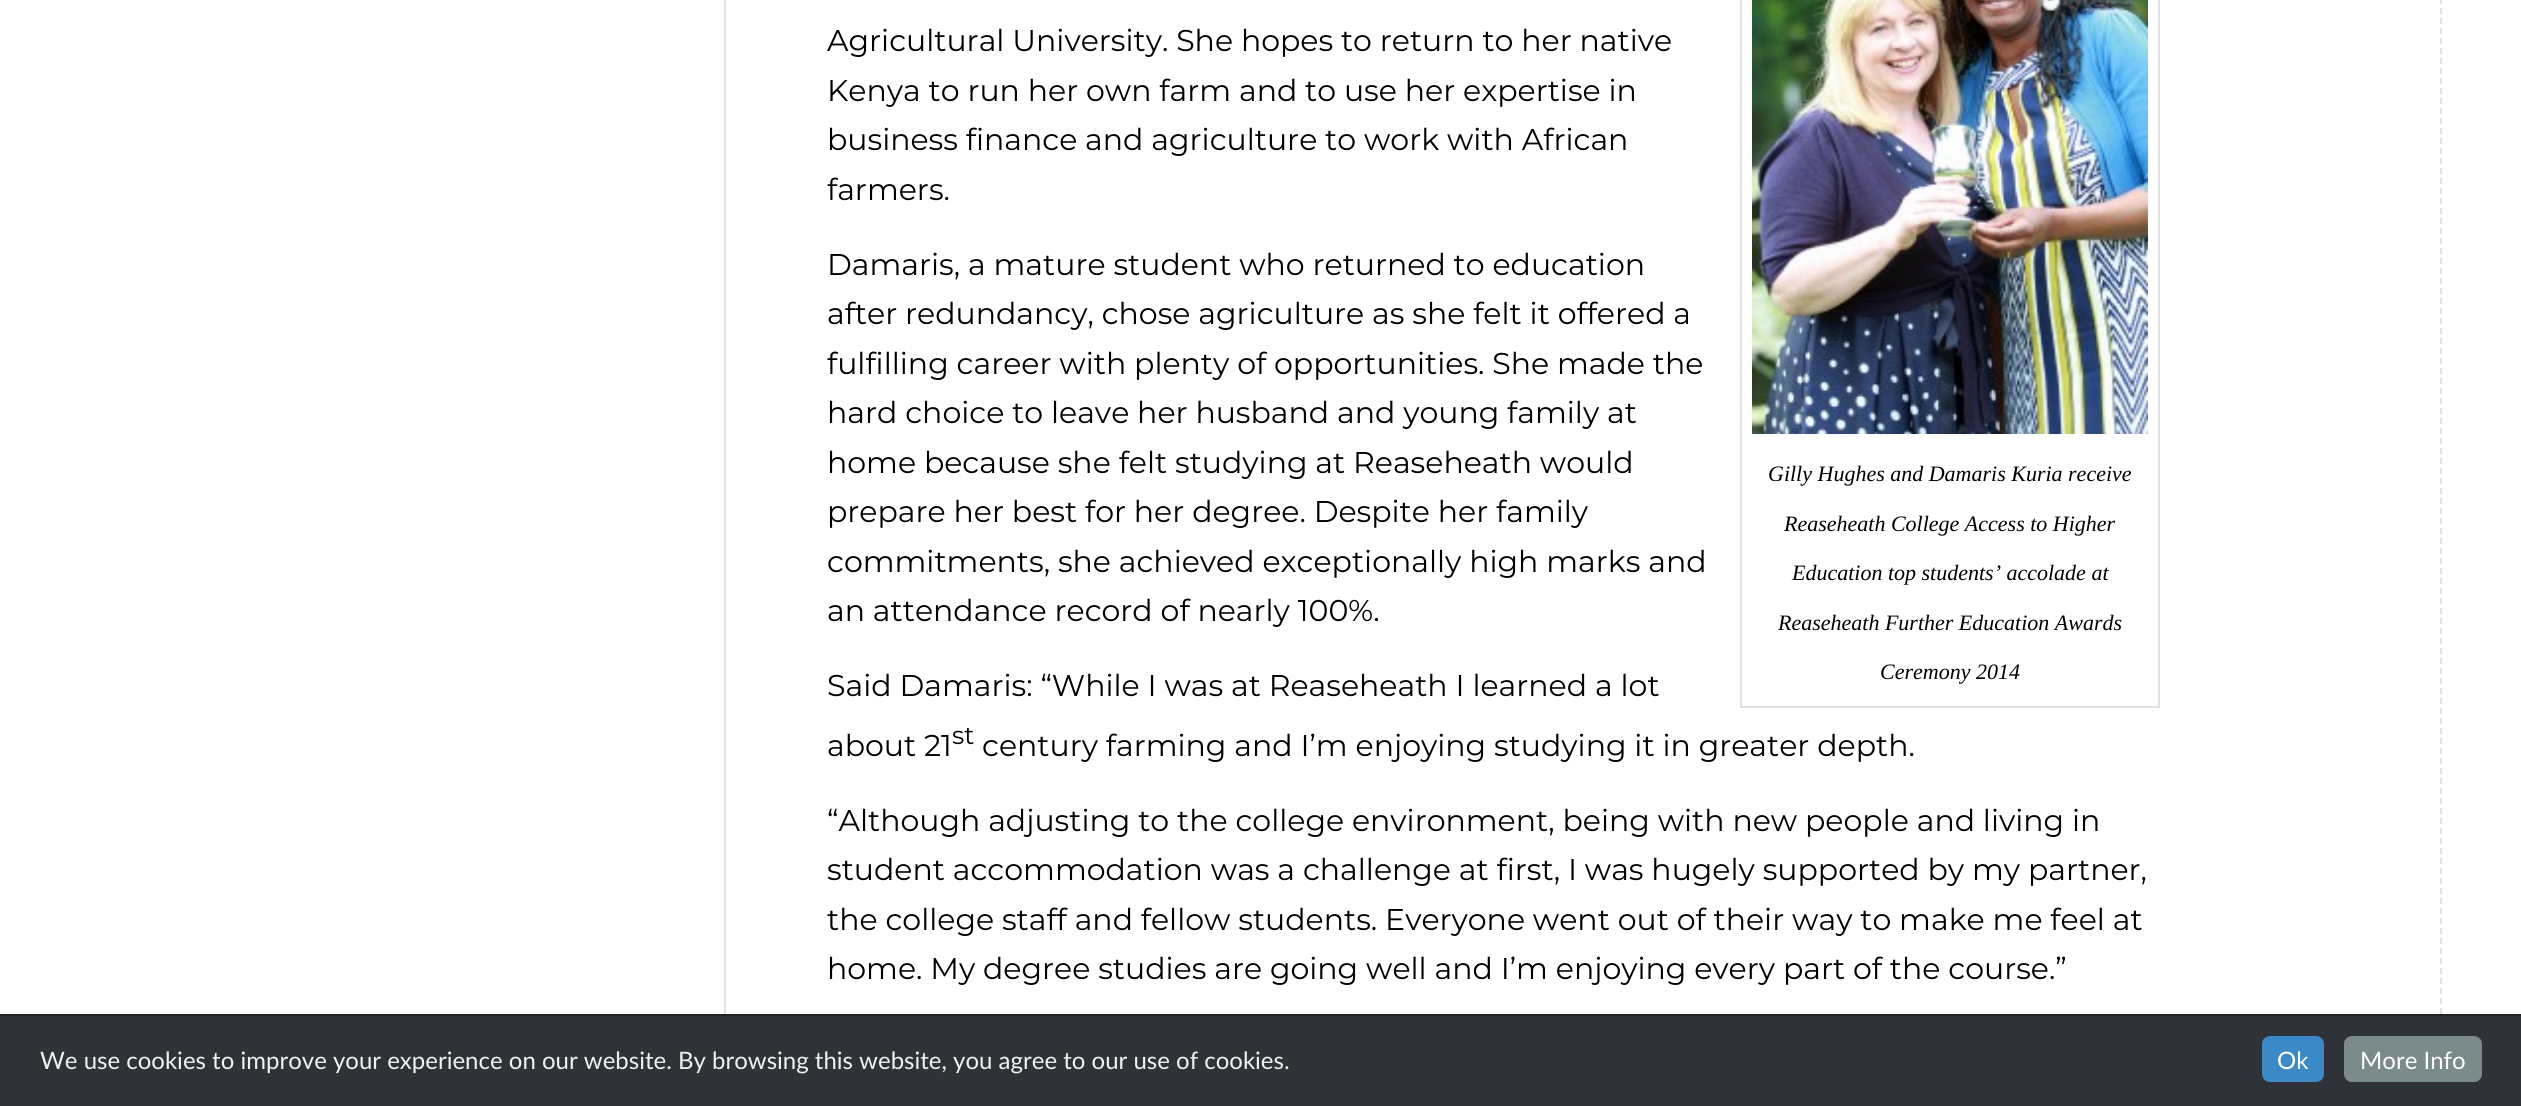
import math
import cairocffi as cairo

surface = cairo.ImageSurface(cairo.FORMAT_RGB24, 2521, 1106)
ctx = cairo.Context(surface)
options = cairo.FontOptions()
options.set_hint_metrics(cairo.HINT_METRICS_OFF)
options.set_hint_style(cairo.HINT_STYLE_NONE)
ctx.set_font_options(options)
ctx.set_miter_limit(4)


def rgb(r, g, b):
    ctx.set_source_rgb(r / 255, g / 255, b / 255)


def face(family, size, italic, bold):
    ctx.select_font_face(family, cairo.FONT_SLANT_ITALIC if italic else cairo.FONT_SLANT_NORMAL, cairo.FONT_WEIGHT_BOLD if bold else cairo.FONT_WEIGHT_NORMAL)
    ctx.set_font_size(size)


def label(x, y, s):
    ctx.move_to(x, y)
    ctx.show_text(s)


def rect(x, y, w, h):
    ctx.rectangle(x, y, w, h)
    ctx.fill()


def rrect(x, y, w, h, r):
    ctx.new_sub_path()
    for i, (u, v) in enumerate([(x + w - r, y + h - r), (x + r, y + h - r), (x + r, y + r), (x + w - r, y + r)]):
        ctx.arc(u, v, r, i * math.pi / 2, (i + 1) * math.pi / 2)
    ctx.close_path()


def image(path, x, y, w, h):
    ctx.save()
    ctx.set_source_surface(cairo.ImageSurface.create_from_png(path), x, y)
    ctx.rectangle(x, y, w, h)
    ctx.fill()
    ctx.restore()


rgb(255, 255, 255)
ctx.paint()
rgb(225, 225, 225)
rect(724, 0, 2, 1106)
face('Montserrat Thin', 30, 0, 0)
rgb(0, 0, 0)
label(827, 51, 'Agricultural University. She hopes to return to her native')
label(827, 101, 'Kenya to run her own farm and to use her expertise in')
label(827, 150, 'business finance and agriculture to work with African')
label(827, 200, 'farmers.')
label(827, 275, 'Damaris, a mature student who returned to education')
label(827, 324, 'after redundancy, chose agriculture as she felt it offered a')
label(827, 374, 'fulfilling career with plenty of opportunities. She made the')
label(827, 423, 'hard choice to leave her husband and young family at')
label(827, 473, 'home because she felt studying at Reaseheath would')
label(827, 522, 'prepare her best for her degree. Despite her family')
label(827, 572, 'commitments, she achieved exceptionally high marks and')
label(827, 621, 'an attendance record of nearly 100%.')
ctx.rectangle(1741, -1, 418, 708)
rgb(225, 225, 225)
ctx.stroke()
image('image0.png', 1752, 0, 396, 434)
face('Liberation Serif', 22, 1, 0)
rgb(0, 0, 0)
label(1768, 481, 'Gilly Hughes and Damaris Kuria receive')
label(1784, 531, 'Reaseheath College Access to Higher')
label(1792, 580, 'Education top students’ accolade at')
label(1778, 630, 'Reaseheath Further Education Awards')
label(1880, 679, 'Ceremony 2014')
face('Montserrat Thin', 30, 0, 0)
label(827, 696, 'Said Damaris: “While I was at Reaseheath I learned a lot')
label(827, 756, 'about 21')
face('Montserrat Thin', 25, 0, 0)
label(952, 744, 'st')
face('Montserrat Thin', 30, 0, 0)
label(982, 756, 'century farming and I’m enjoying studying it in greater depth.')
label(827, 831, '“Although adjusting to the college environment, being with new people and living in')
label(827, 880, 'student accommodation was a challenge at first, I was hugely supported by my partner,')
label(827, 930, 'the college staff and fellow students. Everyone went out of their way to make me feel at')
label(827, 979, 'home. My degree studies are going well and I’m enjoying every part of the course.”')
ctx.new_path()
ctx.move_to(2441, -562)
ctx.line_to(2441, 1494)
rgb(225, 225, 225)
ctx.set_dash([6, 4])
ctx.stroke()
ctx.set_source_rgba(0.196, 0.227, 0.271, 0.7)
rect(0, 1016, 2521, 90)
rgb(32, 34, 38)
rect(0, 1014, 2521, 2)
ctx.set_source_rgba(0.125, 0.133, 0.149, 0.8)
rect(0, 1016, 2521, 90)
face('Lato', 24, 0, 0)
rgb(241, 241, 243)
label(40, 1069, 'We use cookies to improve your experience on our website. By browsing this website, you agree to our use of cookies.')
rgb(59, 137, 199)
rrect(2262, 1036, 62, 46, 8)
ctx.fill()
rgb(255, 255, 255)
label(2277, 1069, 'Ok')
rgb(123, 138, 139)
rrect(2344, 1036, 138, 46, 8)
ctx.fill()
rgb(255, 255, 255)
label(2360, 1069, 'More Info')
surface.write_to_png('render.png')
